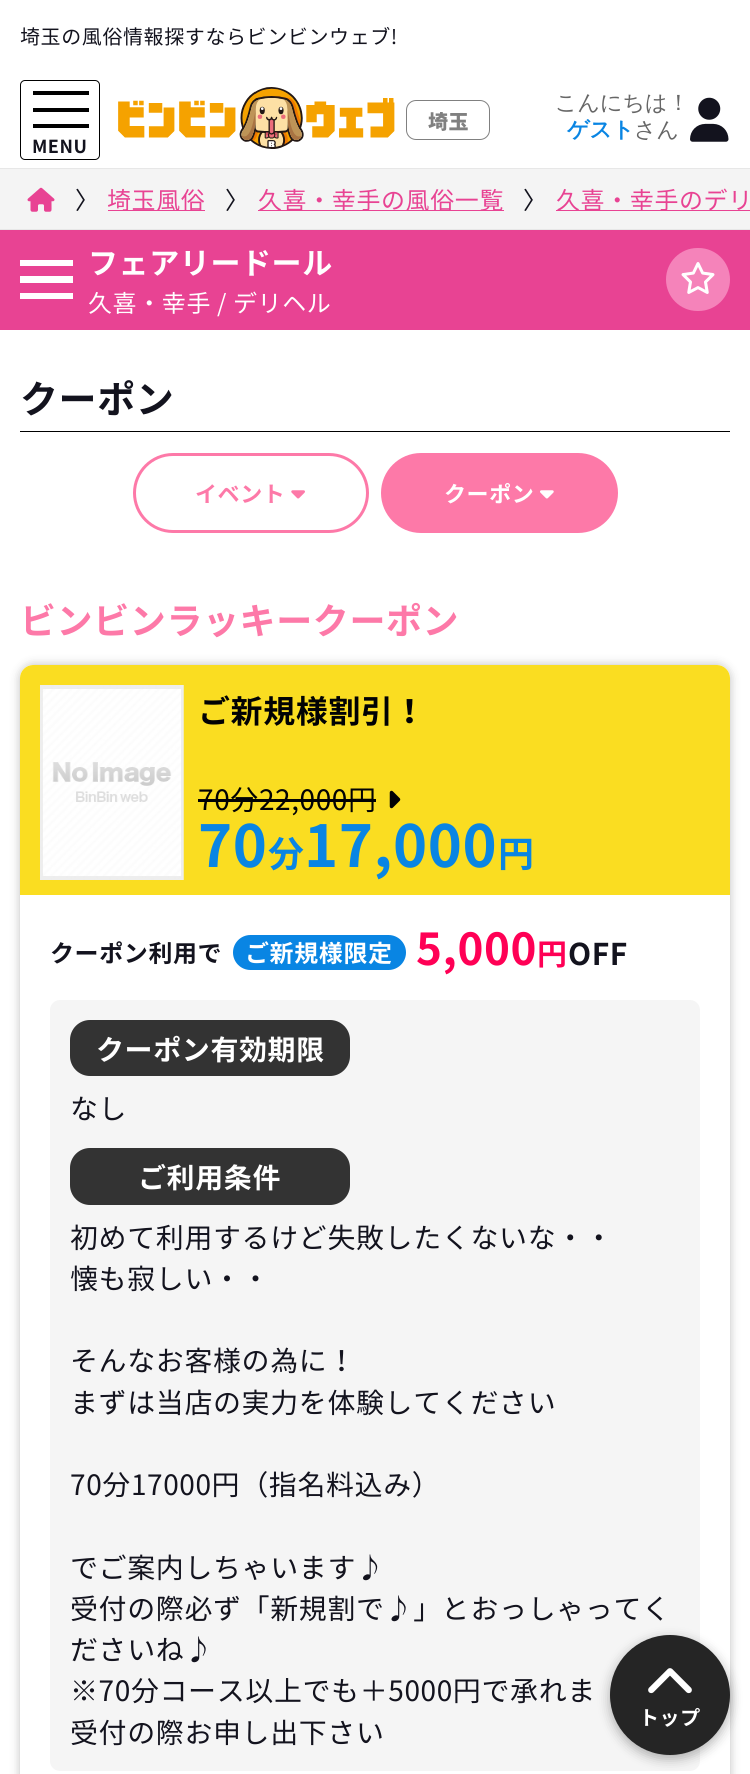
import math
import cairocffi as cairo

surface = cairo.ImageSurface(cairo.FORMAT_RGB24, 750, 1774)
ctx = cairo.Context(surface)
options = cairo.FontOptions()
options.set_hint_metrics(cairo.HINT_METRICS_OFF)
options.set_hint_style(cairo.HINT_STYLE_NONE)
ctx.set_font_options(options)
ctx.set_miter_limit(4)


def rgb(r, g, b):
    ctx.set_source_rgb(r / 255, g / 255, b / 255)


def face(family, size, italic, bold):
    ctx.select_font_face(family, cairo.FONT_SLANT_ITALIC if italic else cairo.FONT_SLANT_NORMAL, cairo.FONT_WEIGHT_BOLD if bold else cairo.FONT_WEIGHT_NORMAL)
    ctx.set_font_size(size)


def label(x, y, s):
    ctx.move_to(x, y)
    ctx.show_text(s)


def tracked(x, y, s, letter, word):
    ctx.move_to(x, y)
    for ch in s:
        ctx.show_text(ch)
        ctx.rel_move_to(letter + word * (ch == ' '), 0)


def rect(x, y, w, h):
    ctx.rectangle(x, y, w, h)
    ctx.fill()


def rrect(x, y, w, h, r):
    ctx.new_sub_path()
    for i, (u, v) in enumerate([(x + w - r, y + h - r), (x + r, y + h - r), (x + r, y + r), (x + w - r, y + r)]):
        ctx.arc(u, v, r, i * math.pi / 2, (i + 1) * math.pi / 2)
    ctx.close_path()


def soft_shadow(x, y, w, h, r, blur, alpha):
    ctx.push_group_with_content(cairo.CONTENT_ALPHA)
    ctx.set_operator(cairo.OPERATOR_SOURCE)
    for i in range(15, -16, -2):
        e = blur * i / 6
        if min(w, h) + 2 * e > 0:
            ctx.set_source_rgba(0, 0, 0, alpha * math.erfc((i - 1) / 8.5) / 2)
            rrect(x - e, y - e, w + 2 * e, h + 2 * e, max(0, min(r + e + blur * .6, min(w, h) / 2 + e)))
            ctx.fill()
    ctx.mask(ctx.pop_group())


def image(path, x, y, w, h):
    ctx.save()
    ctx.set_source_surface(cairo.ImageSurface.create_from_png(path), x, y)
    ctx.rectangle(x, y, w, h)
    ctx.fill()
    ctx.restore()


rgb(255, 255, 255)
ctx.paint()
face('Noto Sans CJK JP', 20, 0, 0)
rgb(19, 19, 30)
tracked(20, 44, '埼玉の風俗情報探すならビンビンウェブ!', 0.6, 0)
image('image0.png', 118, 87, 277, 62)
rrect(406.5, 100.5, 83, 39, 9.5)
rgb(128, 128, 128)
ctx.set_line_width(1)
ctx.stroke()
face('Noto Sans CJK JP Black', 20, 0, 0)
tracked(428, 129, '埼玉', 0.6, 0)
face('WenQuanYi Zen Hei Medium', 22, 0, 0)
rgb(102, 102, 102)
label(555, 110, 'こんにちは！')
face('WenQuanYi Zen Hei', 22, 0, 1)
rgb(9, 133, 227)
label(567, 137, 'ゲスト')
face('WenQuanYi Zen Hei Medium', 22, 0, 0)
rgb(102, 102, 102)
label(634, 137, 'さん')
image('image1.png', 690, 97, 39, 45)
rrect(20.5, 80.5, 79, 79, 4.5)
rgb(0, 0, 0)
ctx.stroke()
rect(33, 91, 56, 4)
rect(33, 108, 56, 4)
rect(33, 124, 56, 4)
face('Noto Sans CJK JP', 18, 0, 1)
rgb(19, 19, 30)
tracked(32, 153, 'MENU', 0.5, 0)
rgb(244, 244, 244)
rect(0, 169, 750, 60)
rgb(231, 231, 231)
rect(0, 168, 750, 1)
rect(0, 229, 750, 1)
image('image2.png', 27, 187, 28, 25)
face('Noto Sans CJK JP', 24, 0, 0)
rgb(19, 19, 30)
tracked(75, 209, '〉', 0.6, 0)
rgb(232, 67, 147)
rect(108, 210, 97, 1)
tracked(107, 209, '埼玉風俗', 0.6, 0)
rgb(19, 19, 30)
tracked(225, 209, '〉', 0.6, 0)
rgb(232, 67, 147)
rect(258, 210, 246, 1)
tracked(258, 209, '久喜・幸手の風俗一覧', 0.6, 0)
rgb(19, 19, 30)
tracked(523, 209, '〉', 0.6, 0)
rgb(232, 67, 147)
rect(556, 210, 194, 1)
tracked(556, 209, '久喜・幸手のデリ', 0.6, 0)
rect(0, 230, 750, 100)
rgb(255, 255, 255)
rect(20, 260, 53, 6)
rect(20, 276, 53, 7)
rect(20, 293, 53, 6)
face('Noto Sans CJK JP', 30, 0, 1)
tracked(88, 274, 'フェアリードール', 0.6, 0)
face('Noto Sans CJK JP', 24, 0, 0)
tracked(88, 312, '久喜・幸手 / デリヘル', 0.6, 0)
rgb(245, 131, 186)
rrect(666, 248, 64, 63, 31.5)
ctx.fill()
image('image3.png', 681, 262, 34, 32)
rgb(0, 0, 0)
rect(20, 431, 710, 1)
face('Noto Sans CJK JP', 38, 0, 1)
rgb(19, 19, 30)
tracked(20, 413, 'クーポン', 0.6, 0)
rrect(134.5, 454.5, 233, 77, 38.5)
rgb(253, 121, 168)
ctx.set_line_width(3)
ctx.stroke()
face('Noto Sans CJK JP', 22, 0, 1)
tracked(195, 502, 'イベント', 0.6, 0)
image('image4.png', 291, 490, 14, 9)
rrect(382.5, 454.5, 234, 77, 38.5)
ctx.fill_preserve()
ctx.stroke()
rgb(255, 255, 255)
tracked(444, 502, 'クーポン', 0.6, 0)
image('image5.png', 540, 490, 14, 9)
face('Noto Sans CJK JP', 36, 0, 1)
rgb(253, 121, 168)
tracked(20, 634, 'ビンビンラッキークーポン', 0.6, 0)
ctx.save()
ctx.set_fill_rule(cairo.FILL_RULE_EVEN_ODD)
ctx.new_path()
ctx.move_to(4, 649)
ctx.line_to(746, 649)
ctx.line_to(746, 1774)
ctx.line_to(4, 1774)
ctx.close_path()
ctx.move_to(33, 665)
ctx.line_to(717, 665)
ctx.curve_to(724, 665, 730, 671, 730, 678)
ctx.line_to(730, 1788)
ctx.curve_to(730, 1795, 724, 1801, 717, 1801)
ctx.line_to(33, 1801)
ctx.curve_to(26, 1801, 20, 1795, 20, 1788)
ctx.line_to(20, 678)
ctx.curve_to(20, 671, 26, 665, 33, 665)
ctx.close_path()
ctx.clip()
rgb(0, 0, 0)
soft_shadow(20, 665, 710, 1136, 13, 5, 0.25)
ctx.restore()
rgb(250, 221, 33)
ctx.new_path()
ctx.move_to(33, 665)
ctx.line_to(717, 665)
ctx.curve_to(724, 665, 730, 671, 730, 678)
ctx.line_to(730, 895)
ctx.line_to(20, 895)
ctx.line_to(20, 678)
ctx.curve_to(20, 671, 26, 665, 33, 665)
ctx.close_path()
ctx.fill()
image('image6.png', 40, 685, 144, 195)
face('Noto Sans CJK JP', 32, 0, 1)
rgb(1, 2, 4)
tracked(198, 723, 'ご新規様割引！', 0.6, 0)
face('Noto Sans CJK JP', 28, 0, 0)
tracked(198, 810, '70分22,000円', 0.6, 0)
rect(198, 799, 178, 3)
image('image7.png', 389, 790, 12, 19)
face('Noto Sans CJK JP', 58, 0, 1)
rgb(9, 133, 227)
tracked(198, 867, '70', 0.6, 0)
face('Noto Sans CJK JP', 36, 0, 1)
tracked(268, 867, '分', 0.6, 0)
face('Noto Sans CJK JP', 58, 0, 1)
tracked(304, 867, '17,000', 0.6, 0)
face('Noto Sans CJK JP', 36, 0, 1)
tracked(498, 867, '円', 0.6, 0)
face('Noto Sans CJK JP', 24, 0, 1)
rgb(19, 19, 30)
tracked(50, 962, 'クーポン利用で', 0.6, 0)
rgb(9, 133, 227)
rrect(233, 935, 173, 35, 17.5)
ctx.fill()
rgb(255, 255, 255)
tracked(245, 962, 'ご新規様限定', 0.6, 0)
face('Noto Sans CJK JP', 44, 0, 1)
rgb(255, 0, 85)
tracked(416, 965, '5,000', 0.6, 0)
face('Noto Sans CJK JP', 30, 0, 1)
tracked(537, 965, '円', 0.6, 0)
rgb(19, 19, 30)
tracked(568, 965, 'OFF', 0.6, 0)
rgb(245, 245, 245)
rrect(50, 1000, 650, 771, 10)
ctx.fill()
rgb(51, 51, 51)
rrect(70, 1020, 280, 56, 20)
ctx.fill()
face('Noto Sans CJK JP', 28, 0, 1)
rgb(255, 255, 255)
tracked(96, 1060, 'クーポン有効期限', 0.6, 0)
face('Noto Sans CJK JP', 28, 0, 0)
rgb(19, 19, 30)
tracked(70, 1119, 'なし', 0.6, 0)
rgb(51, 51, 51)
rrect(70, 1148, 280, 57, 20)
ctx.fill()
face('Noto Sans CJK JP', 28, 0, 1)
rgb(255, 255, 255)
tracked(138, 1188, 'ご利用条件', 0.6, 0)
face('Noto Sans CJK JP', 28, 0, 0)
rgb(19, 19, 30)
tracked(70, 1248, '初めて利用するけど失敗したくないな・・', 0.6, 0)
tracked(70, 1289, '懐も寂しい・・', 0.6, 0)
tracked(70, 1371, 'そんなお客様の為に！', 0.6, 0)
tracked(70, 1413, 'まずは当店の実力を体験してください', 0.6, 0)
tracked(70, 1495, '70分17000円（指名料込み）', 0.6, 0)
tracked(70, 1578, 'でご案内しちゃいます♪', 0.6, 0)
tracked(70, 1619, '受付の際必ず「新規割で♪」とおっしゃってく', 0.6, 0)
tracked(70, 1660, 'ださいね♪', 0.6, 0)
tracked(70, 1701, '※70分コース以上でも＋5000円で承れま', 0.6, 0)
tracked(70, 1743, '受付の際お申し出下さい', 0.6, 0)
rgb(0, 0, 0)
soft_shadow(610, 1639, 120, 120, 60, 6, 0.3)
rgb(37, 37, 37)
ctx.arc(670, 1695, 60, 0, 2 * math.pi)
ctx.fill()
image('image8.png', 648, 1668, 44, 26)
face('Noto Sans CJK JP', 20, 0, 1)
rgb(255, 255, 255)
tracked(639, 1725, 'トップ', 0.6, 0)
surface.write_to_png('render.png')
